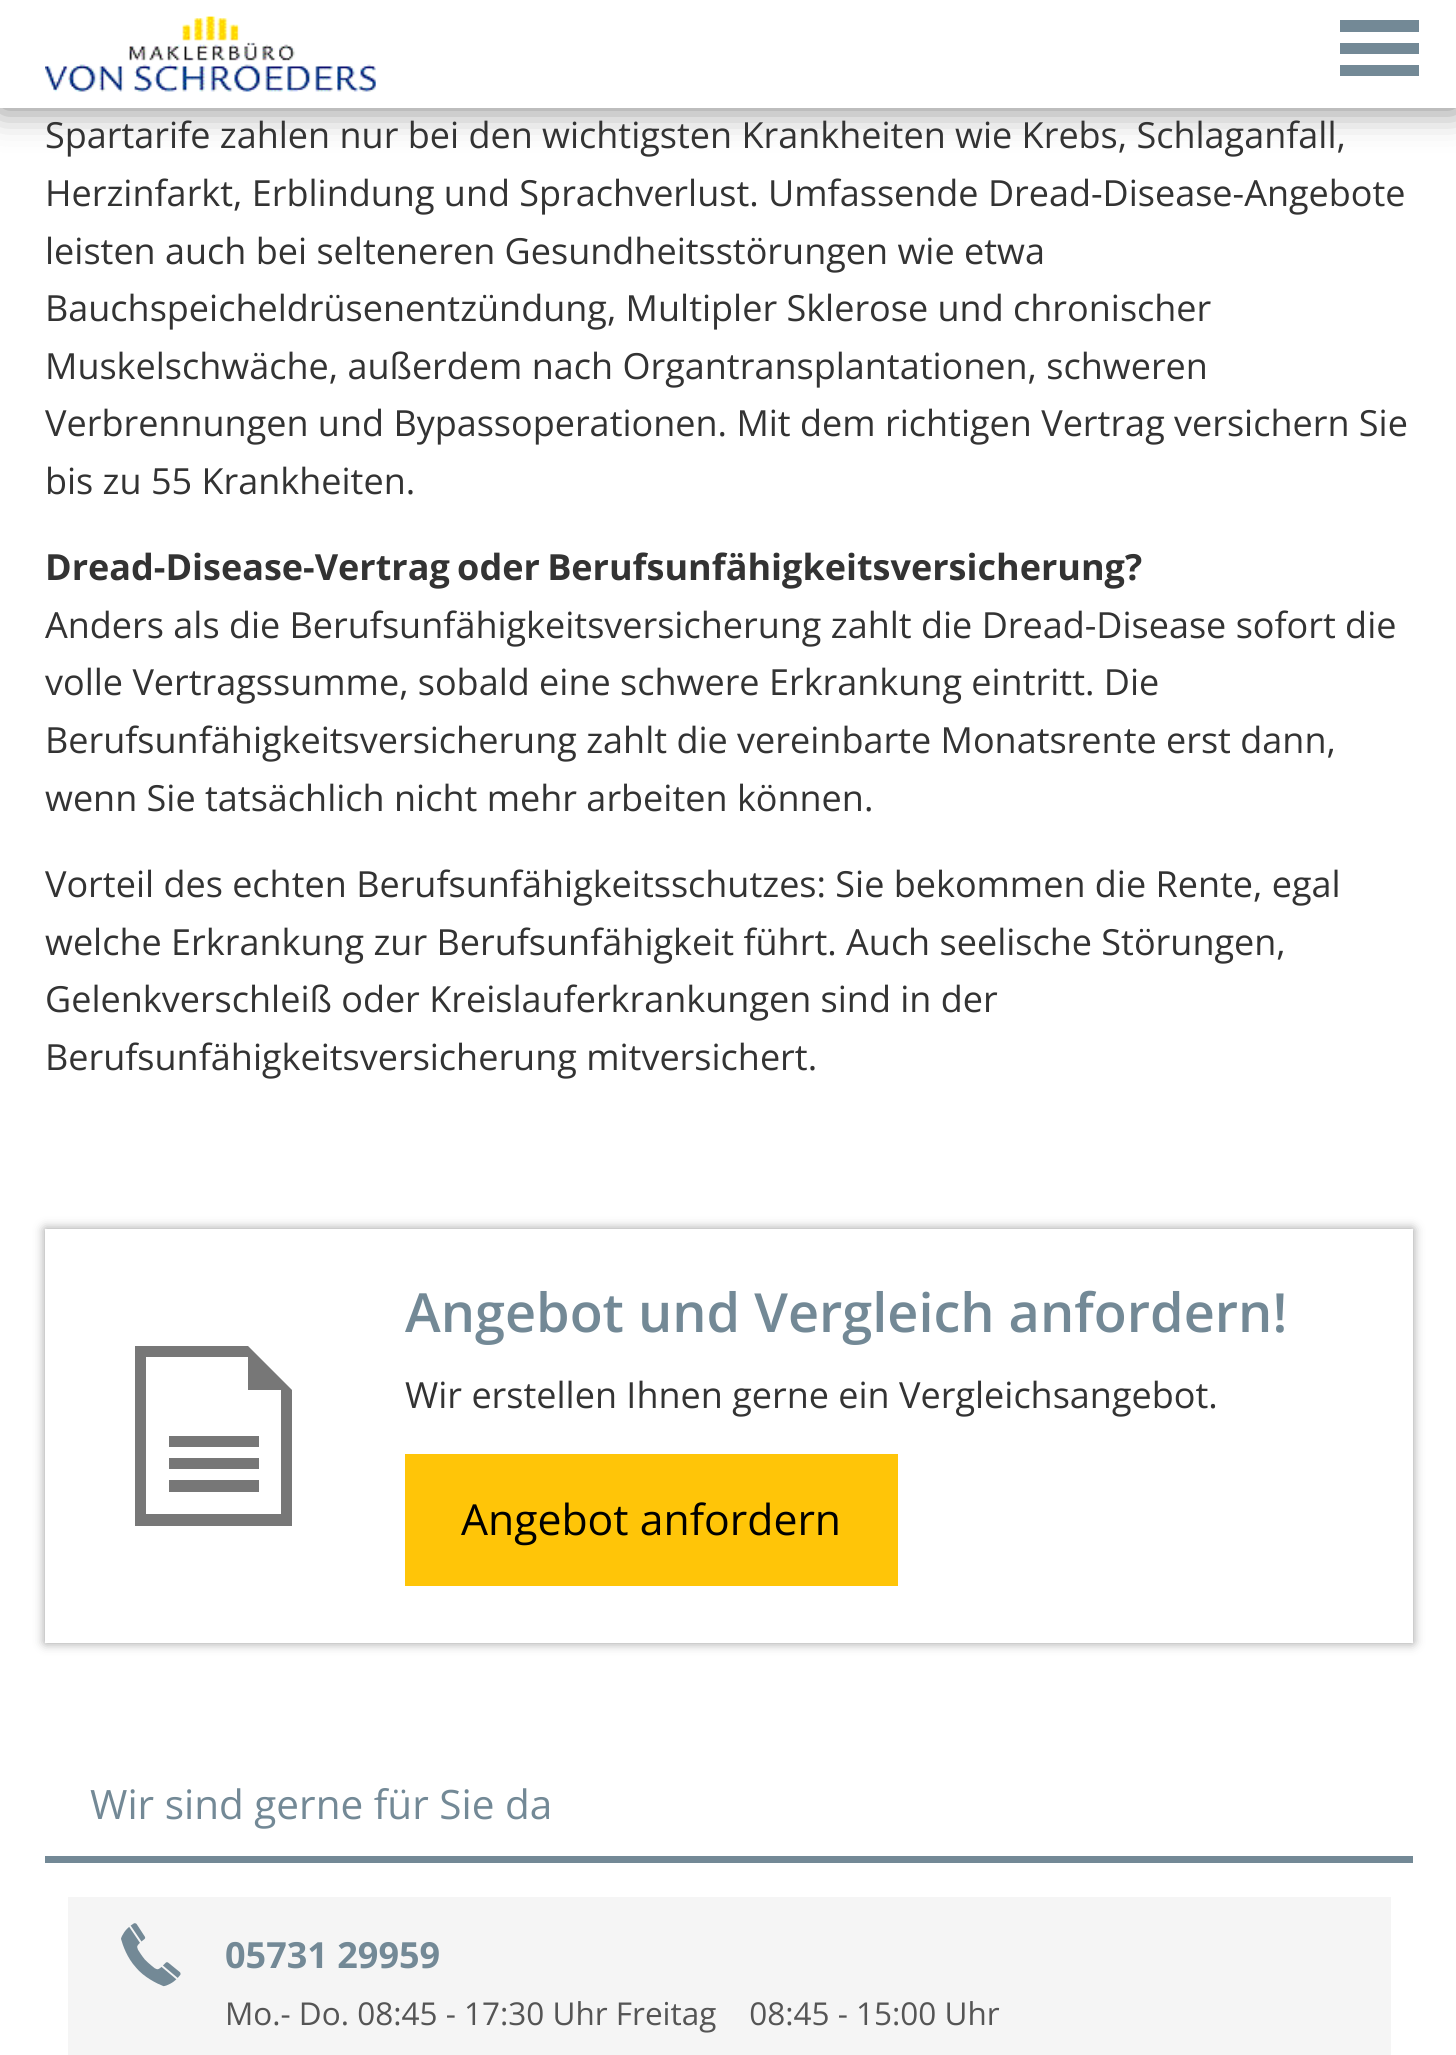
import math
import cairocffi as cairo

surface = cairo.ImageSurface(cairo.FORMAT_RGB24, 1456, 2055)
ctx = cairo.Context(surface)
options = cairo.FontOptions()
options.set_hint_metrics(cairo.HINT_METRICS_OFF)
options.set_hint_style(cairo.HINT_STYLE_NONE)
ctx.set_font_options(options)
ctx.set_miter_limit(4)


def rgb(r, g, b):
    ctx.set_source_rgb(r / 255, g / 255, b / 255)


def face(family, size, italic, bold):
    ctx.select_font_face(family, cairo.FONT_SLANT_ITALIC if italic else cairo.FONT_SLANT_NORMAL, cairo.FONT_WEIGHT_BOLD if bold else cairo.FONT_WEIGHT_NORMAL)
    ctx.set_font_size(size)


def label(x, y, s):
    ctx.move_to(x, y)
    ctx.show_text(s)


def tracked(x, y, s, letter, word):
    ctx.move_to(x, y)
    for ch in s:
        ctx.show_text(ch)
        ctx.rel_move_to(letter + word * (ch == ' '), 0)


def rect(x, y, w, h):
    ctx.rectangle(x, y, w, h)
    ctx.fill()


def rrect(x, y, w, h, r):
    ctx.new_sub_path()
    for i, (u, v) in enumerate([(x + w - r, y + h - r), (x + r, y + h - r), (x + r, y + r), (x + w - r, y + r)]):
        ctx.arc(u, v, r, i * math.pi / 2, (i + 1) * math.pi / 2)
    ctx.close_path()


def soft_shadow(x, y, w, h, r, blur, alpha):
    ctx.push_group_with_content(cairo.CONTENT_ALPHA)
    ctx.set_operator(cairo.OPERATOR_SOURCE)
    for i in range(15, -16, -2):
        e = blur * i / 6
        if min(w, h) + 2 * e > 0:
            ctx.set_source_rgba(0, 0, 0, alpha * math.erfc((i - 1) / 8.5) / 2)
            rrect(x - e, y - e, w + 2 * e, h + 2 * e, max(0, min(r + e + blur * .6, min(w, h) / 2 + e)))
            ctx.fill()
    ctx.mask(ctx.pop_group())


def image(path, x, y, w, h):
    ctx.save()
    ctx.set_source_surface(cairo.ImageSurface.create_from_png(path), x, y)
    ctx.rectangle(x, y, w, h)
    ctx.fill()
    ctx.restore()


rgb(255, 255, 255)
ctx.paint()
rgb(89, 90, 89)
soft_shadow(0, 0, 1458, 108, 0, 18, 0.8)
rgb(255, 255, 255)
rect(0, 0, 1456, 108)
image('image0.png', 45, 16, 331, 76)
rgb(115, 137, 150)
ctx.new_path()
ctx.move_to(1340, 20)
ctx.line_to(1419, 20)
ctx.line_to(1419, 32)
ctx.line_to(1340, 32)
ctx.close_path()
ctx.move_to(1340, 43)
ctx.line_to(1419, 43)
ctx.line_to(1419, 54)
ctx.line_to(1340, 54)
ctx.close_path()
ctx.move_to(1340, 65)
ctx.line_to(1419, 65)
ctx.line_to(1419, 76)
ctx.line_to(1340, 76)
ctx.close_path()
ctx.fill()
face('Open Sans', 36, 0, 0)
rgb(51, 51, 51)
label(45, 148, 'Spartarife zahlen nur bei den wichtigsten Krankheiten wie Krebs, Schlaganfall,')
label(45, 206, 'Herzinfarkt, Erblindung und Sprachverlust. Umfassende Dread-Disease-Angebote')
label(45, 264, 'leisten auch bei selteneren Gesundheitsstörungen wie etwa')
label(45, 321, 'Bauchspeicheldrüsenentzündung, Multipler Sklerose und chronischer')
label(45, 379, 'Muskelschwäche, außerdem nach Organtransplantationen, schweren')
label(45, 436, 'Verbrennungen und Bypassoperationen. Mit dem richtigen Vertrag versichern Sie')
label(45, 494, 'bis zu 55 Krankheiten.')
face('Open Sans', 36, 0, 1)
tracked(45, 580, 'Dread-Disease-Vertrag oder Berufsunfähigkeitsversicherung?', 0, -2)
face('Open Sans', 36, 0, 0)
label(45, 638, 'Anders als die Berufsunfähigkeitsversicherung zahlt die Dread-Disease sofort die')
label(45, 695, 'volle Vertragssumme, sobald eine schwere Erkrankung eintritt. Die')
label(45, 753, 'Berufsunfähigkeitsversicherung zahlt die vereinbarte Monatsrente erst dann,')
label(45, 811, 'wenn Sie tatsächlich nicht mehr arbeiten können.')
label(45, 897, 'Vorteil des echten Berufsunfähigkeitsschutzes: Sie bekommen die Rente, egal')
label(45, 955, 'welche Erkrankung zur Berufsunfähigkeit führt. Auch seelische Störungen,')
label(45, 1012, 'Gelenkverschleiß oder Kreislauferkrankungen sind in der')
label(45, 1070, 'Berufsunfähigkeitsversicherung mitversichert.')
rgb(153, 153, 153)
soft_shadow(45, 1229, 1368, 414, 0, 5.5, 1)
rgb(255, 255, 255)
rect(45, 1229, 1368, 414)
rgb(119, 119, 119)
ctx.new_path()
ctx.move_to(248, 1346)
ctx.line_to(135, 1346)
ctx.line_to(135, 1526)
ctx.line_to(292, 1526)
ctx.line_to(292, 1390)
ctx.close_path()
ctx.move_to(281, 1514)
ctx.line_to(146, 1514)
ctx.line_to(146, 1357)
ctx.line_to(248, 1357)
ctx.line_to(248, 1390)
ctx.line_to(281, 1390)
ctx.close_path()
ctx.move_to(169, 1480)
ctx.line_to(259, 1480)
ctx.line_to(259, 1492)
ctx.line_to(169, 1492)
ctx.close_path()
ctx.move_to(169, 1458)
ctx.line_to(259, 1458)
ctx.line_to(259, 1469)
ctx.line_to(169, 1469)
ctx.close_path()
ctx.move_to(169, 1436)
ctx.line_to(259, 1436)
ctx.line_to(259, 1447)
ctx.line_to(169, 1447)
ctx.close_path()
ctx.fill()
face('Open Sans SemiBold', 54, 0, 0)
rgb(115, 137, 150)
label(405, 1332, 'Angebot und Vergleich anfordern!')
face('Open Sans', 36, 0, 0)
rgb(51, 51, 51)
label(405, 1408, 'Wir erstellen Ihnen gerne ein Vergleichsangebot.')
rgb(255, 197, 8)
rect(405, 1454, 493, 132)
face('Open Sans', 42.75, 0, 0)
rgb(0, 0, 0)
label(461, 1535, 'Angebot anfordern')
rgb(115, 137, 150)
rect(45, 1856, 1368, 7)
face('Open Sans', 40.5, 0, 0)
label(90, 1819, 'Wir sind gerne für Sie da')
rgb(245, 245, 245)
rect(68, 1897, 1323, 158)
image('image1.png', 121, 1923, 60, 64)
face('Open Sans', 36, 0, 1)
rgb(115, 137, 150)
label(225, 1968, '05731 29959')
face('Open Sans', 31.5, 0, 0)
rgb(85, 85, 85)
label(225, 2025, 'Mo.- Do. 08:45 - 17:30 Uhr Freitag    08:45 - 15:00 Uhr')
surface.write_to_png('render.png')
